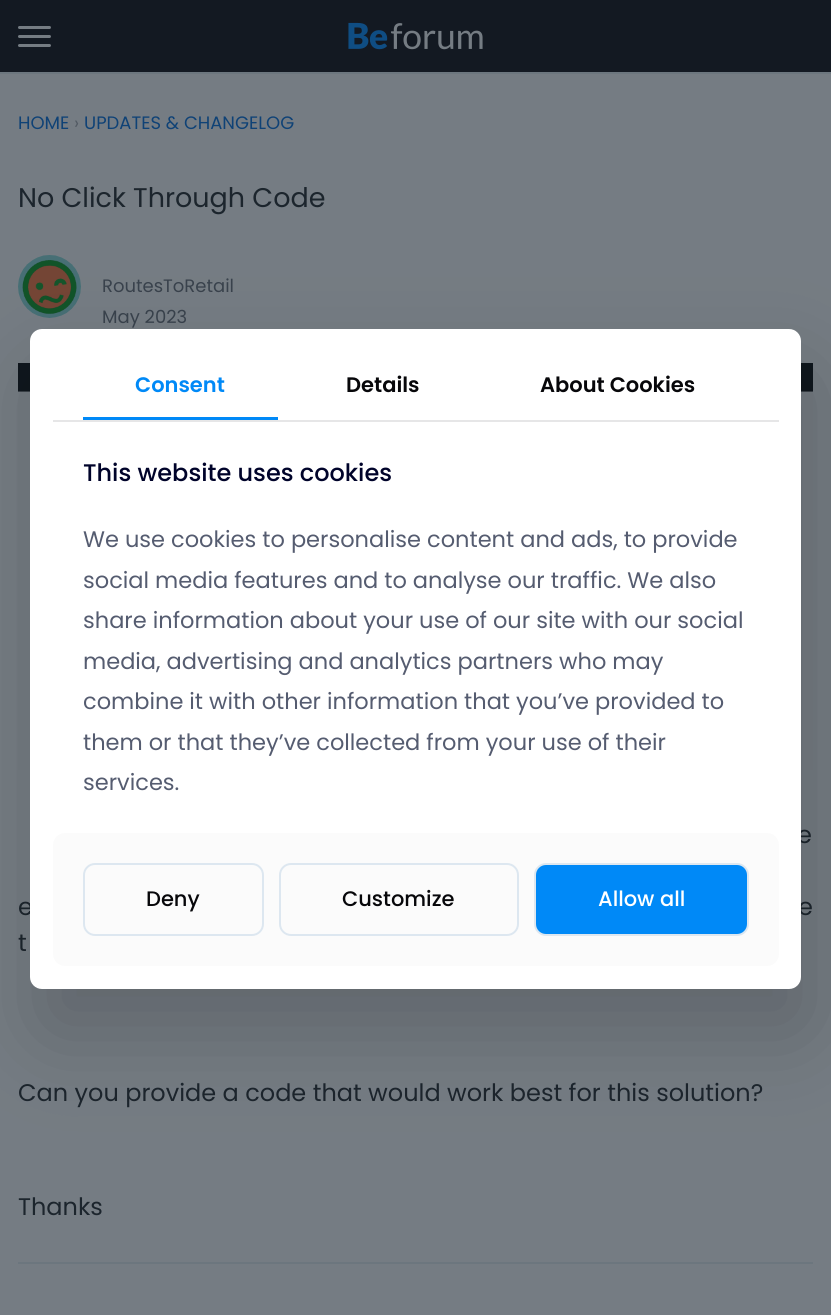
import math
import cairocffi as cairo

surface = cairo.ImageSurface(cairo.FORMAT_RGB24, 831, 1315)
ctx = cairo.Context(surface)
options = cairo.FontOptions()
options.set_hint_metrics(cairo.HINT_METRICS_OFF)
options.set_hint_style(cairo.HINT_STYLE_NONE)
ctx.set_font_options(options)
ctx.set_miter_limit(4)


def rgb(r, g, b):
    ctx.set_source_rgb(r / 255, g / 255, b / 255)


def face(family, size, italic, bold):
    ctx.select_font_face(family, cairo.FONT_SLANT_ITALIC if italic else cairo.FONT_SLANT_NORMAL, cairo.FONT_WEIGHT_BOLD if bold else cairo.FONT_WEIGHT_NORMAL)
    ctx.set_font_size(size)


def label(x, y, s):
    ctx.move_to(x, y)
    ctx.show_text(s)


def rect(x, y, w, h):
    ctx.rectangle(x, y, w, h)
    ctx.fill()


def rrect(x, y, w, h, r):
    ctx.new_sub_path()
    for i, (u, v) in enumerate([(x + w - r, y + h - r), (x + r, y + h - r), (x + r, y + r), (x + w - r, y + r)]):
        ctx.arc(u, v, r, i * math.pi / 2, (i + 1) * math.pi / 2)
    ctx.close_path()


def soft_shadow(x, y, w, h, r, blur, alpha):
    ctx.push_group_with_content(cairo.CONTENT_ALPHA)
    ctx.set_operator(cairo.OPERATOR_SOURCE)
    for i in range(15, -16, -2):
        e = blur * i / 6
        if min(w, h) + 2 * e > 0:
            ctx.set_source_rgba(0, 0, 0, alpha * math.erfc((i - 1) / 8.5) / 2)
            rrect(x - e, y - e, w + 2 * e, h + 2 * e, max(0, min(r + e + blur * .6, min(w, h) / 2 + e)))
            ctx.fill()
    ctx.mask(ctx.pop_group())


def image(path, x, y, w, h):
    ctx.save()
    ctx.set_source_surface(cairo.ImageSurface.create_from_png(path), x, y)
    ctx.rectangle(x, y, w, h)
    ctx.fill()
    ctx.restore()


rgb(117, 124, 131)
ctx.paint()
rgb(19, 25, 34)
rect(0, 0, 831, 72)
rgb(108, 118, 126)
rect(0, 72, 831, 2)
rgb(117, 124, 131)
rrect(18, 35, 33, 3, 1.5)
ctx.fill()
rrect(18, 26, 33, 3, 1.5)
ctx.fill()
rrect(18, 44, 33, 3, 1.5)
ctx.fill()
image('image0.png', 348, 22, 135, 28)
face('Poppins', 18, 0, 0)
rgb(15, 66, 118)
label(18, 129, 'HOME')
rgb(83, 91, 100)
label(74, 129, '›')
rgb(15, 66, 118)
label(84, 129, 'UPDATES & CHANGELOG')
face('Poppins', 27, 0, 0)
rgb(28, 37, 45)
label(18, 207, 'No Click Through Code')
rgb(108, 118, 126)
rect(18, 1262, 795, 2)
image('image1.png', 18, 255, 63, 63)
face('Poppins', 18, 0, 0)
rgb(57, 66, 76)
label(102, 292, 'RoutesToRetail')
label(102, 323, 'May 2023')
image('image2.png', 18, 363, 795, 407)
face('Poppins', 24, 0, 0)
rgb(28, 37, 45)
label(797, 843, 'e')
label(18, 915, 'e')
label(798, 915, 'e')
label(18, 951, 't')
label(18, 1101, 'Can you provide a code that would work best for this solution?')
label(18, 1215, 'Thanks')
rgb(0, 0, 0)
soft_shadow(39, 374, 771, 660, 12, 45, 0.18)
rgb(255, 255, 255)
rrect(30, 329, 771, 660, 12)
ctx.fill()
rgb(230, 230, 231)
rect(53, 420, 726, 2)
face('Poppins SemiBold', 21, 0, 0)
rgb(0, 137, 247)
label(135, 392, 'Consent')
rect(83, 417, 195, 3)
rgb(7, 7, 10)
label(346, 392, 'Details')
label(540, 392, 'About Cookies')
face('Poppins Medium', 24, 0, 0)
rgb(0, 3, 42)
label(83, 481, 'This website uses cookies')
face('Poppins', 22.5, 0, 0)
rgb(85, 92, 112)
label(83, 547, 'We use cookies to personalise content and ads, to provide')
label(83, 588, 'social media features and to analyse our traffic. We also')
label(83, 628, 'share information about your use of our site with our social')
label(83, 669, 'media, advertising and analytics partners who may')
label(83, 709, 'combine it with other information that you’ve provided to')
label(83, 750, 'them or that they’ve collected from your use of their')
label(83, 790, 'services.')
rgb(251, 251, 251)
rrect(53, 833, 726, 133, 12)
ctx.fill()
rrect(84, 864, 179, 71, 11)
rgb(221, 231, 240)
ctx.stroke()
face('Poppins Medium', 21, 0, 0)
rgb(7, 7, 10)
label(146, 906, 'Deny')
rrect(280, 864, 238, 71, 11)
rgb(221, 231, 240)
ctx.stroke()
rgb(7, 7, 10)
label(342, 906, 'Customize')
rgb(0, 137, 247)
rrect(535, 864, 213, 71, 11)
ctx.fill_preserve()
rgb(221, 231, 240)
ctx.stroke()
rgb(255, 255, 255)
label(598, 906, 'Allow all')
surface.write_to_png('render.png')
